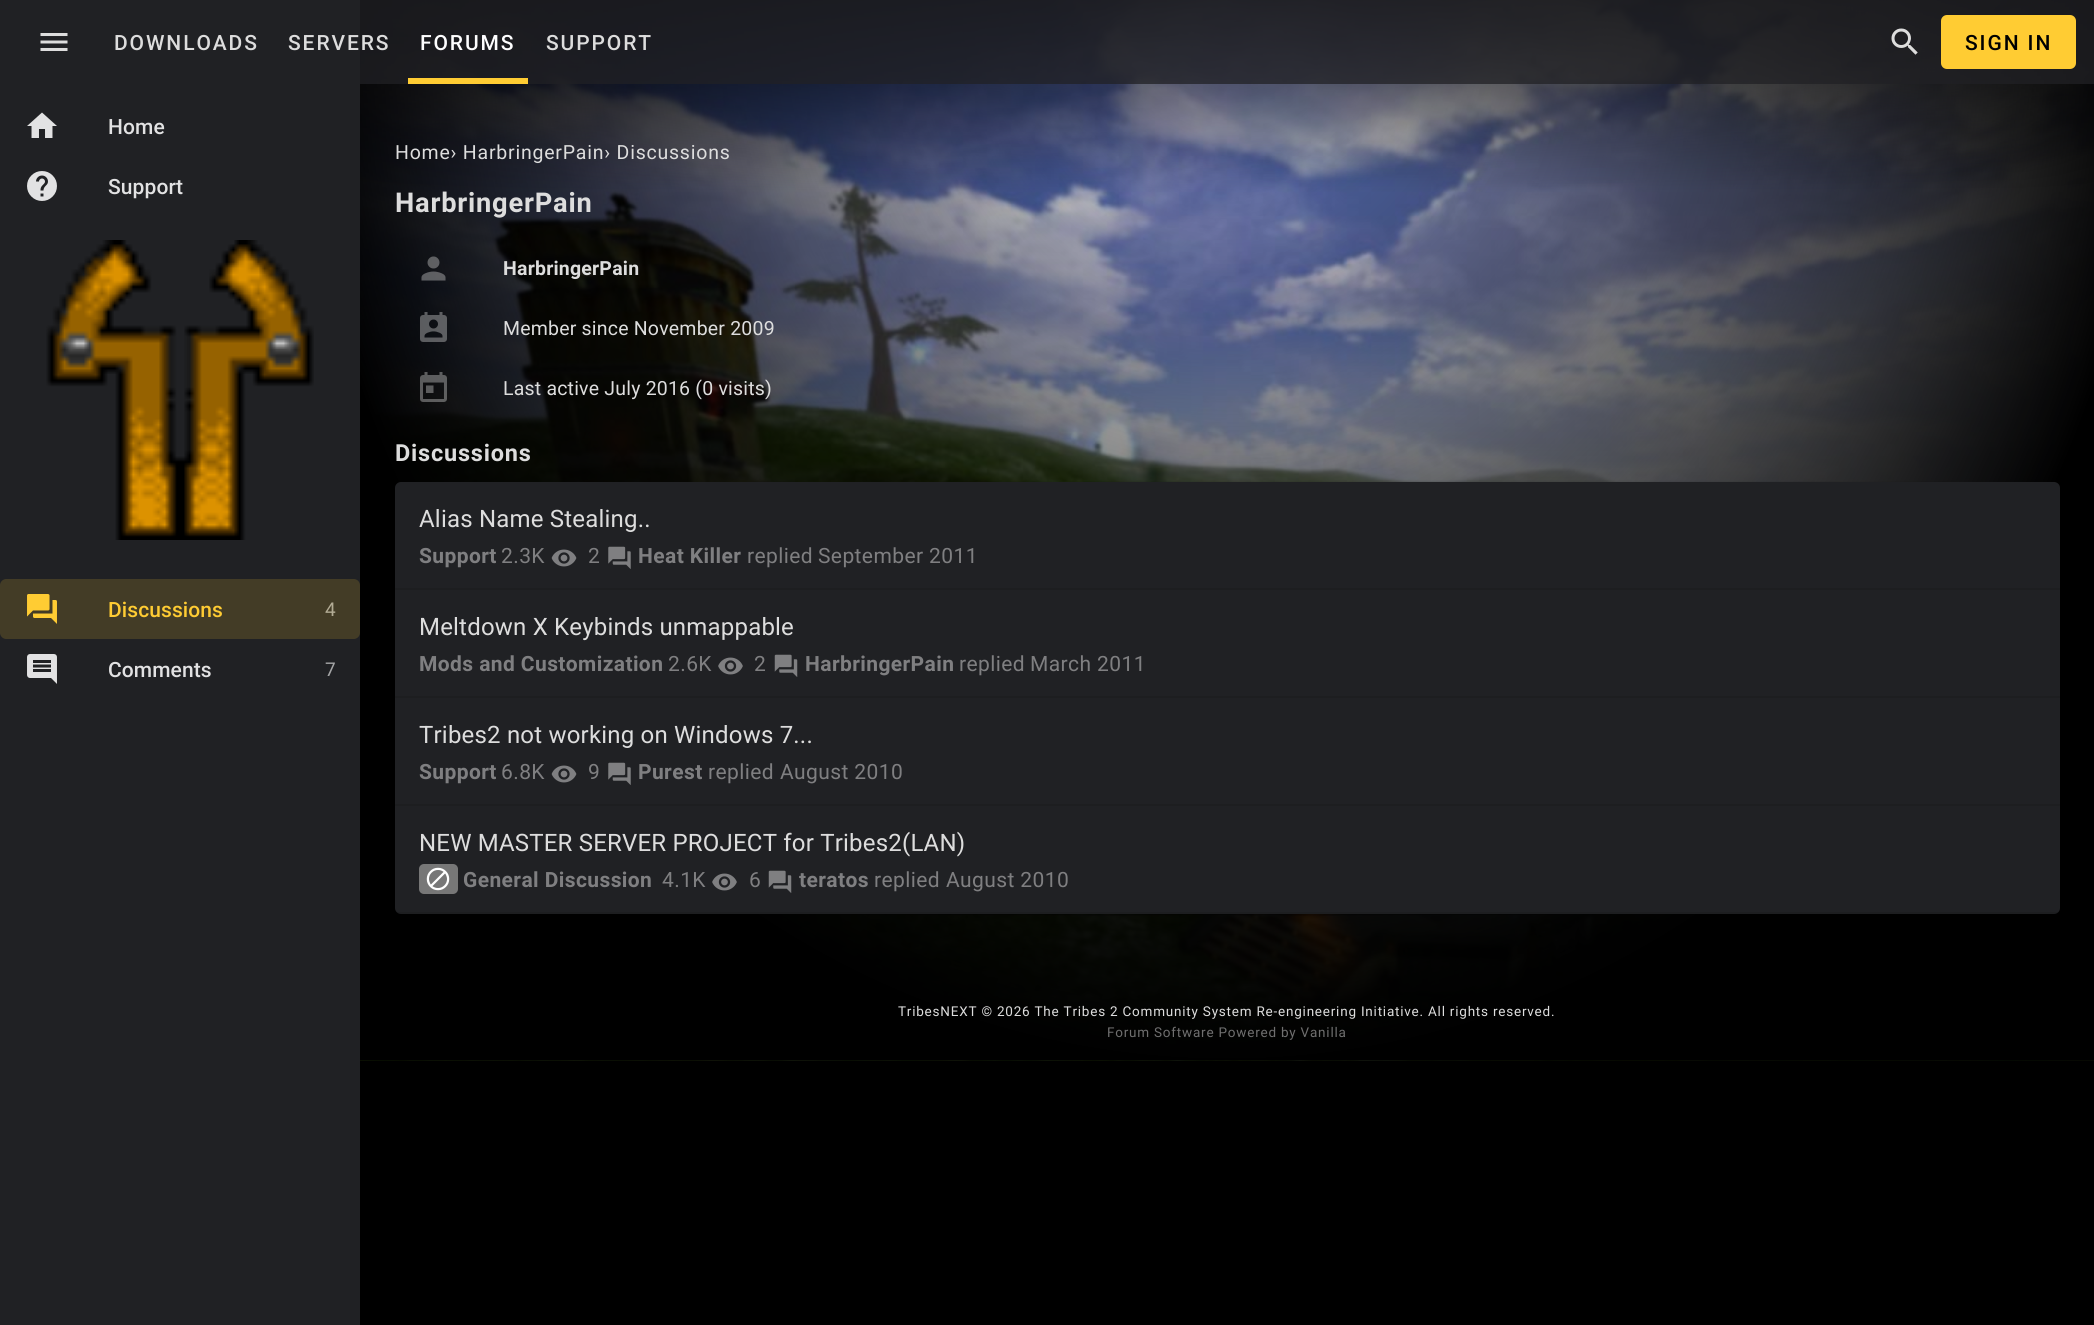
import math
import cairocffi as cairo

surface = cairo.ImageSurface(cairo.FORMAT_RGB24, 2094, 1325)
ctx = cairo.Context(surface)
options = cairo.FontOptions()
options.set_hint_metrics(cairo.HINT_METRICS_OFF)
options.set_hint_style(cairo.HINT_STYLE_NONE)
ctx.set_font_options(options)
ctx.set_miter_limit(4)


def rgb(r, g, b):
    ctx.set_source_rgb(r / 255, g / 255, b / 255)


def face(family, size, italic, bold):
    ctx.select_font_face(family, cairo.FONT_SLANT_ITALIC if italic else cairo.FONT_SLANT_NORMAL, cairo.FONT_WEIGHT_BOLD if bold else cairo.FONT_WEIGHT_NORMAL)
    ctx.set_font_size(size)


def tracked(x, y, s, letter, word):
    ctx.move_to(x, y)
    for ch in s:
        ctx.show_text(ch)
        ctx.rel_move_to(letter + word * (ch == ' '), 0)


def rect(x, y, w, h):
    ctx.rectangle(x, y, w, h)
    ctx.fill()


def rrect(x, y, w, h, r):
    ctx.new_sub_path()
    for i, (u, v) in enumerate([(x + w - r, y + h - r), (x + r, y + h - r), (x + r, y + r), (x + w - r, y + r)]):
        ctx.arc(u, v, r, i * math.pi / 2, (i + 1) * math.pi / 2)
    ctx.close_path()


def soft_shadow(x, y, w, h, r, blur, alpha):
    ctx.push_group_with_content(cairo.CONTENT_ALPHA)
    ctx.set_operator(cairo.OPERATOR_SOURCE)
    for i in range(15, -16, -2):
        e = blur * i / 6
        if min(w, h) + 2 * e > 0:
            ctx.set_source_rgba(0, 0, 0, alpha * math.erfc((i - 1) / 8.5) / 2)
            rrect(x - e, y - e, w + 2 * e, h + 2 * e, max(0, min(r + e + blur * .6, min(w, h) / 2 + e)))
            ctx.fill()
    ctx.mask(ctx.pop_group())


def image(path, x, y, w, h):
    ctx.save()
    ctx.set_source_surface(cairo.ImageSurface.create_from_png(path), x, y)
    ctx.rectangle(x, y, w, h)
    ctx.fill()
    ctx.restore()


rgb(0, 0, 0)
ctx.paint()
image('image7.png', 360, 0, 1734, 1061)
ctx.set_source_rgba(0.125, 0.129, 0.141, 0.75)
rect(360, 0, 1734, 84)
rgb(32, 33, 36)
rect(0, 0, 360, 1325)
image('image0.png', 40, 33, 28, 18)
face('Roboto Medium', 21, 0, 0)
rgb(221, 221, 221)
tracked(114, 50, 'DOWNLOADS', 1.9, 0)
tracked(288, 50, 'SERVERS', 1.9, 0)
rgb(255, 204, 51)
rect(408, 78, 120, 6)
rgb(254, 254, 255)
tracked(420, 50, 'FORUMS', 1.9, 0)
rgb(221, 221, 221)
tracked(546, 50, 'SUPPORT', 1.9, 0)
image('image1.png', 1891, 28, 27, 27)
rgb(255, 204, 51)
rrect(1941, 15, 135, 54, 6)
ctx.fill()
rgb(0, 0, 0)
tracked(1965, 50, 'SIGN IN', 1.9, 0)
image('image2.png', 27, 112, 30, 26)
rgb(226, 226, 227)
tracked(108, 134, 'Home', 0.1, 0)
image('image3.png', 27, 171, 30, 30)
tracked(108, 194, 'Support', 0.1, 0)
image('image4.png', 46, 240, 268, 300)
image('image5.png', 27, 594, 30, 30)
rgb(255, 204, 51)
tracked(108, 617, 'Discussions', 0.1, 0)
face('Roboto', 19, 0, 0)
rgb(164, 165, 166)
tracked(325, 616, '4', 0.1, 0)
ctx.set_source_rgba(1, 0.8, 0.2, 0.16)
ctx.new_path()
ctx.move_to(6, 579)
ctx.curve_to(3, 579, 0, 582, 0, 585)
ctx.line_to(0, 633)
ctx.curve_to(0, 636, 3, 639, 6, 639)
ctx.line_to(354, 639)
ctx.curve_to(357, 639, 360, 636, 360, 633)
ctx.line_to(360, 585)
ctx.curve_to(360, 582, 357, 579, 354, 579)
ctx.close_path()
ctx.fill()
image('image6.png', 27, 654, 30, 30)
face('Roboto Medium', 21, 0, 0)
rgb(226, 226, 227)
tracked(108, 677, 'Comments', 0.1, 0)
face('Roboto', 19, 0, 0)
rgb(164, 165, 166)
tracked(325, 676, '7', 0.1, 0)
face('Roboto', 19.5, 0, 0)
rgb(221, 221, 221)
tracked(395, 159, 'Home› HarbringerPain› Discussions', 0.78, 0)
face('Roboto', 27.25, 0, 1)
tracked(395, 212, 'HarbringerPain', 0.78, 0)
image('image8.png', 421, 256, 25, 25)
face('Roboto', 19.5, 0, 1)
tracked(503, 275, 'HarbringerPain', 0.2, 0)
image('image9.png', 420, 312, 27, 30)
face('Roboto', 19.5, 0, 0)
tracked(503, 335, 'Member since November 2009', 0.2, 0)
image('image10.png', 420, 372, 27, 30)
tracked(503, 395, 'Last active July 2016 (0 visits)', 0.2, 0)
face('Roboto', 23.5, 0, 1)
tracked(395, 461, 'Discussions', 0.78, 0)
rgb(0, 0, 0)
soft_shadow(395, 483, 1665, 432, 6, 2, 0.12)
soft_shadow(395, 483, 1665, 432, 6, 1, 0.14)
soft_shadow(396, 486, 1662, 429, 5, 1, 0.2)
rgb(32, 33, 36)
rrect(395, 482, 1665, 432, 6)
ctx.fill()
rgb(29, 30, 32)
rect(395, 588, 1665, 2)
face('Roboto', 24, 0, 0)
rgb(221, 221, 221)
tracked(419, 527, 'Alias Name Stealing..', 0.2, 0)
face('Roboto', 21, 0, 1)
rgb(127, 127, 129)
tracked(419, 563, 'Support', 0.4, 0)
face('Roboto', 21, 0, 0)
tracked(501, 563, '2.3K', 0.4, 0)
image('image11.png', 551, 549, 26, 18)
tracked(588, 563, '2', 0.4, 0)
image('image12.png', 608, 546, 23, 23)
face('Roboto', 21, 0, 1)
tracked(638, 563, 'Heat Killer', 0.4, 0)
face('Roboto', 21, 0, 0)
tracked(747, 563, 'replied', 0.4, 0)
tracked(818, 563, 'September 2011', 0.4, 0)
rgb(29, 30, 32)
rect(395, 696, 1665, 2)
face('Roboto', 24, 0, 0)
rgb(221, 221, 221)
tracked(419, 635, 'Meltdown X Keybinds unmappable', 0.2, 0)
face('Roboto', 21, 0, 1)
rgb(127, 127, 129)
tracked(419, 671, 'Mods and Customization', 0.4, 0)
face('Roboto', 21, 0, 0)
tracked(668, 671, '2.6K', 0.4, 0)
image('image13.png', 718, 657, 25, 18)
tracked(754, 671, '2', 0.4, 0)
image('image14.png', 774, 654, 24, 23)
face('Roboto', 21, 0, 1)
tracked(805, 671, 'HarbringerPain', 0.4, 0)
face('Roboto', 21, 0, 0)
tracked(959, 671, 'replied', 0.4, 0)
tracked(1030, 671, 'March 2011', 0.4, 0)
rgb(29, 30, 32)
rect(395, 804, 1665, 2)
face('Roboto', 24, 0, 0)
rgb(221, 221, 221)
tracked(419, 743, 'Tribes2 not working on Windows 7...', 0.2, 0)
face('Roboto', 21, 0, 1)
rgb(127, 127, 129)
tracked(419, 779, 'Support', 0.4, 0)
face('Roboto', 21, 0, 0)
tracked(501, 779, '6.8K', 0.4, 0)
image('image11.png', 551, 765, 26, 18)
tracked(588, 779, '9', 0.4, 0)
image('image12.png', 608, 762, 23, 23)
face('Roboto', 21, 0, 1)
tracked(638, 779, 'Purest', 0.4, 0)
face('Roboto', 21, 0, 0)
tracked(708, 779, 'replied', 0.4, 0)
tracked(780, 779, 'August 2010', 0.4, 0)
ctx.set_source_rgba(0, 0, 0, 0.1)
rect(395, 912, 1665, 2)
face('Roboto', 24, 0, 0)
rgb(221, 221, 221)
tracked(419, 851, 'NEW MASTER SERVER PROJECT for Tribes2(LAN)', 0.2, 0)
rgb(119, 119, 119)
rrect(419, 864, 39, 30, 5)
ctx.fill()
image('image15.png', 426, 867, 24, 24)
face('Roboto', 21, 0, 1)
rgb(127, 127, 129)
tracked(463, 887, 'General Discussion', 0.4, 0)
face('Roboto', 21, 0, 0)
tracked(662, 887, '4.1K', 0.4, 0)
image('image13.png', 712, 873, 25, 18)
tracked(749, 887, '6', 0.4, 0)
image('image14.png', 768, 870, 24, 23)
face('Roboto', 21, 0, 1)
tracked(799, 887, 'teratos', 0.4, 0)
face('Roboto', 21, 0, 0)
tracked(874, 887, 'replied', 0.4, 0)
tracked(946, 887, 'August 2010', 0.4, 0)
face('Roboto', 13.5, 0, 0)
rgb(221, 221, 221)
tracked(898, 1016, 'TribesNEXT © 2026 The Tribes 2 Community System Re-engineering Initiative. All rights reserved.', 0.78, 0)
rgb(111, 111, 111)
tracked(1107, 1037, 'Forum Software Powered by Vanilla', 0.78, 0)
surface.write_to_png('render.png')
